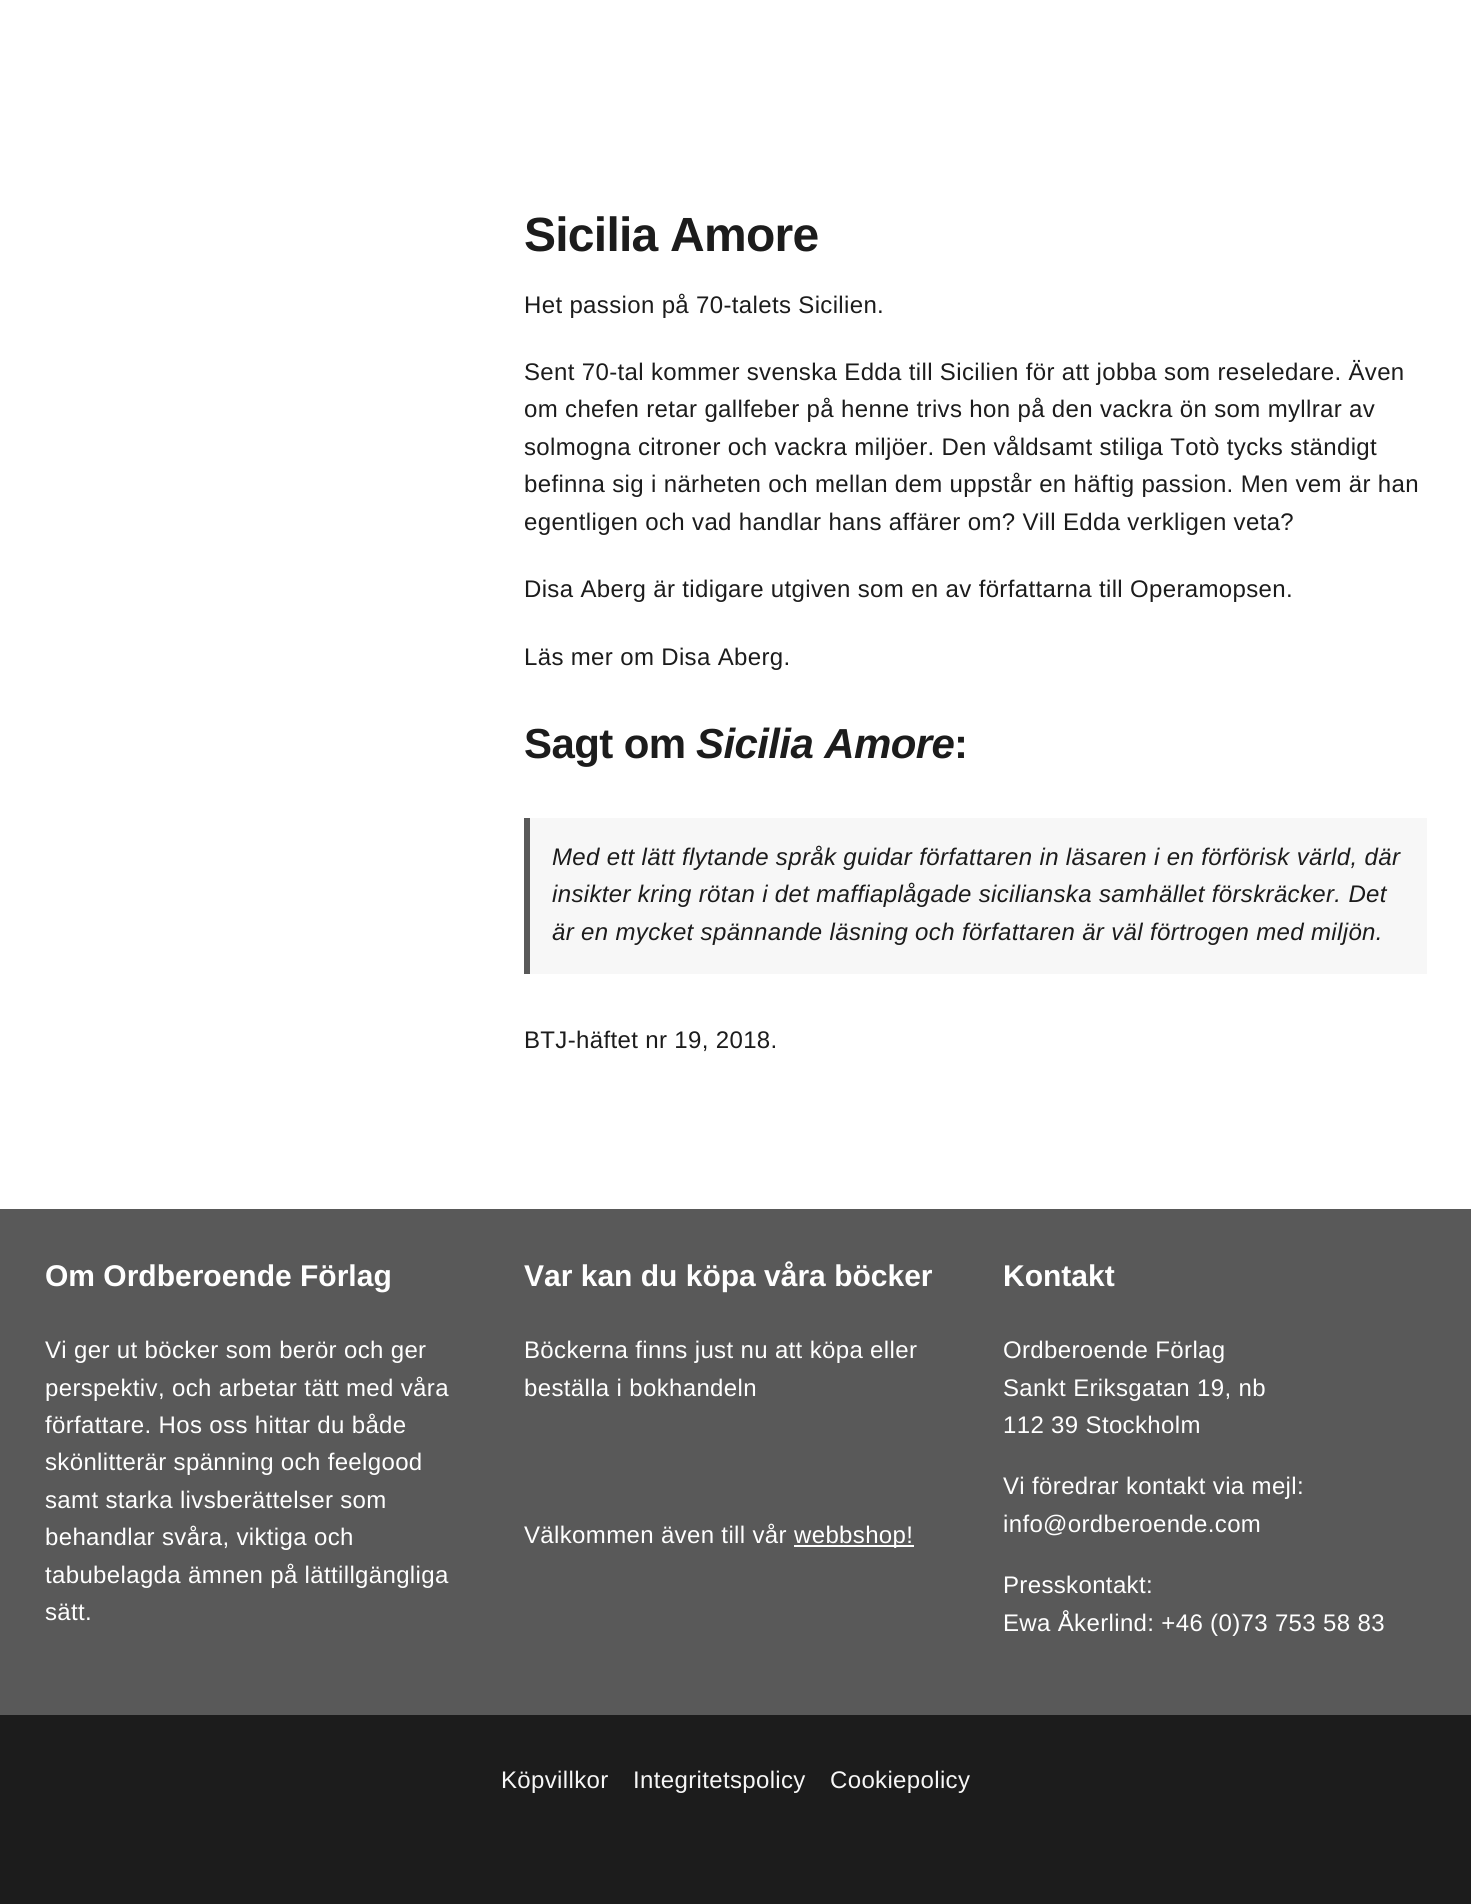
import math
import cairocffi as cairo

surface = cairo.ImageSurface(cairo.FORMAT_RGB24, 1471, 1904)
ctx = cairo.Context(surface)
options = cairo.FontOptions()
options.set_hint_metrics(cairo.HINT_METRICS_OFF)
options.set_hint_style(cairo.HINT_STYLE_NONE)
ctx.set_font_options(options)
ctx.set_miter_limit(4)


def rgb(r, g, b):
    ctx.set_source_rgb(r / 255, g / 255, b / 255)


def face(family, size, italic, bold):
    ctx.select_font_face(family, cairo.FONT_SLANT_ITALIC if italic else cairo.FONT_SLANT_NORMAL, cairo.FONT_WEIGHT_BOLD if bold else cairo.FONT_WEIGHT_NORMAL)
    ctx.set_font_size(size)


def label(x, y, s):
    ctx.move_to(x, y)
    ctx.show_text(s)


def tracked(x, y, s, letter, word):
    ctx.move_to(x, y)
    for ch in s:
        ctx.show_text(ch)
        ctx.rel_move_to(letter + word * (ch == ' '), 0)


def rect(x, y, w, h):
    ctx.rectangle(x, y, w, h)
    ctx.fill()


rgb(255, 255, 255)
ctx.paint()
face('Liberation Sans', 48, 0, 1)
rgb(28, 28, 28)
tracked(524, 251, 'Sicilia Amore', -0.75, 0)
face('Liberation Sans', 24, 0, 0)
tracked(524, 313, 'Het passion på 70-talets Sicilien.', 0.35, 0)
tracked(524, 380, 'Sent 70-tal kommer svenska Edda till Sicilien för att jobba som reseledare. Även', 0.35, 0)
tracked(524, 417, 'om chefen retar gallfeber på henne trivs hon på den vackra ön som myllrar av', 0.35, 0)
tracked(524, 455, 'solmogna citroner och vackra miljöer. Den våldsamt stiliga Totò tycks ständigt', 0.35, 0)
tracked(524, 492, 'befinna sig i närheten och mellan dem uppstår en häftig passion. Men vem är han', 0.35, 0)
tracked(524, 530, 'egentligen och vad handlar hans affärer om? Vill Edda verkligen veta?', 0.35, 0)
tracked(524, 597, 'Disa Aberg är tidigare utgiven som en av författarna till Operamopsen.', 0.35, 0)
tracked(524, 665, 'Läs mer om Disa Aberg.', 0.35, 0)
face('Liberation Sans', 42, 0, 1)
tracked(524, 758, 'Sagt om', -0.6, 0)
face('Liberation Sans', 42, 1, 1)
tracked(696, 758, 'Sicilia Amore', -0.6, 0)
face('Liberation Sans', 42, 0, 1)
tracked(954, 758, ':', -0.6, 0)
rgb(247, 247, 247)
rect(530, 818, 897, 156)
rgb(89, 89, 89)
rect(524, 818, 6, 156)
face('Liberation Sans', 24, 1, 0)
rgb(28, 28, 28)
tracked(552, 865, 'Med ett lätt flytande språk guidar författaren in läsaren i en förförisk värld, där', 0.35, 0)
tracked(552, 902, 'insikter kring rötan i det maffiaplågade sicilianska samhället förskräcker. Det', 0.35, 0)
tracked(552, 940, 'är en mycket spännande läsning och författaren är väl förtrogen med miljön.', 0.35, 0)
face('Liberation Sans', 24, 0, 0)
tracked(524, 1048, 'BTJ-häftet nr 19, 2018.', 0.35, 0)
rgb(89, 89, 89)
rect(0, 1209, 1471, 506)
face('Liberation Sans', 30, 0, 1)
rgb(255, 255, 255)
label(45, 1286, 'Om Ordberoende Förlag')
face('Liberation Sans', 24, 0, 0)
tracked(45, 1358, 'Vi ger ut böcker som berör och ger', 0.35, 0)
tracked(45, 1396, 'perspektiv, och arbetar tätt med våra', 0.35, 0)
tracked(45, 1433, 'författare. Hos oss hittar du både', 0.35, 0)
tracked(45, 1470, 'skönlitterär spänning och feelgood', 0.35, 0)
tracked(45, 1508, 'samt starka livsberättelser som', 0.35, 0)
tracked(45, 1545, 'behandlar svåra, viktiga och', 0.35, 0)
tracked(45, 1583, 'tabubelagda ämnen på lättillgängliga', 0.35, 0)
tracked(45, 1620, 'sätt.', 0.35, 0)
face('Liberation Sans', 30, 0, 1)
label(524, 1286, 'Var kan du köpa våra böcker')
face('Liberation Sans', 24, 0, 0)
tracked(524, 1358, 'Böckerna finns just nu att köpa eller', 0.35, 0)
tracked(524, 1396, 'beställa i bokhandeln', 0.35, 0)
tracked(524, 1543, 'Välkommen även till vår', 0.35, 0)
rect(794, 1545, 120, 2)
tracked(794, 1543, 'webbshop!', 0.35, 0)
face('Liberation Sans', 30, 0, 1)
label(1003, 1286, 'Kontakt')
face('Liberation Sans', 24, 0, 0)
tracked(1003, 1358, 'Ordberoende Förlag', 0.35, 0)
tracked(1003, 1396, 'Sankt Eriksgatan 19, nb', 0.35, 0)
tracked(1003, 1433, '112 39 Stockholm', 0.35, 0)
tracked(1003, 1494, 'Vi föredrar kontakt via mejl:', 0.35, 0)
tracked(1003, 1532, 'info@ordberoende.com', 0.35, 0)
tracked(1003, 1593, 'Presskontakt:', 0.35, 0)
tracked(1003, 1631, 'Ewa Åkerlind: +46 (0)73 753 58 83', 0.35, 0)
rgb(28, 28, 28)
rect(0, 1715, 1471, 189)
rgb(247, 247, 247)
tracked(501, 1788, 'Köpvillkor', 0.35, 0)
tracked(633, 1788, 'Integritetspolicy', 0.35, 0)
tracked(830, 1788, 'Cookiepolicy', 0.35, 0)
surface.write_to_png('render.png')
